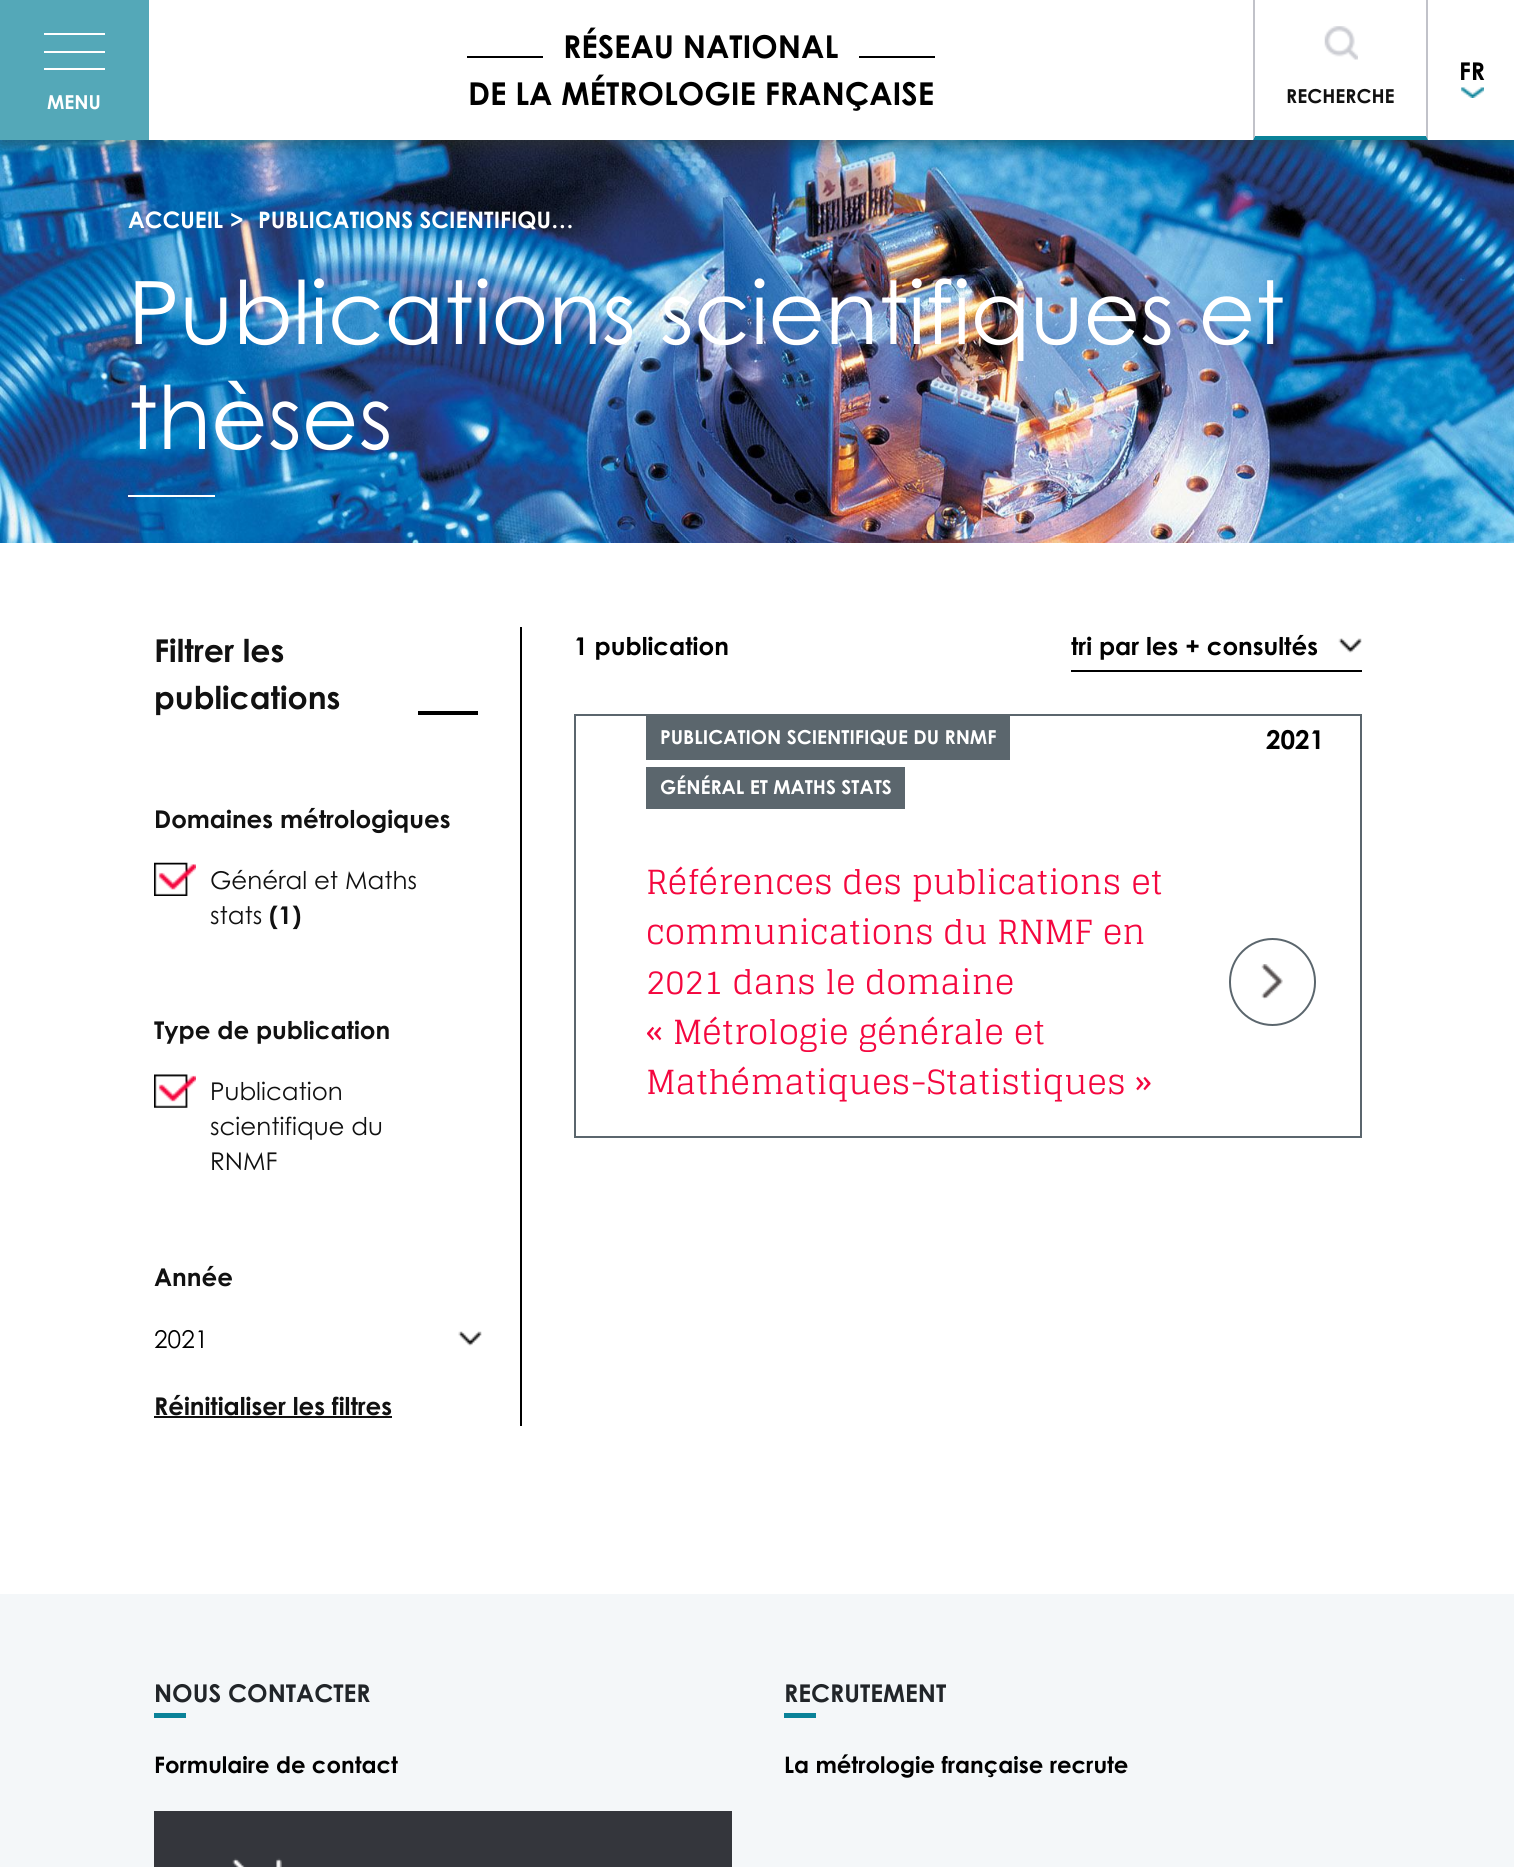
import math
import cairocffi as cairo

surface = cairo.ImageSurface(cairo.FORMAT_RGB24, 1514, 1867)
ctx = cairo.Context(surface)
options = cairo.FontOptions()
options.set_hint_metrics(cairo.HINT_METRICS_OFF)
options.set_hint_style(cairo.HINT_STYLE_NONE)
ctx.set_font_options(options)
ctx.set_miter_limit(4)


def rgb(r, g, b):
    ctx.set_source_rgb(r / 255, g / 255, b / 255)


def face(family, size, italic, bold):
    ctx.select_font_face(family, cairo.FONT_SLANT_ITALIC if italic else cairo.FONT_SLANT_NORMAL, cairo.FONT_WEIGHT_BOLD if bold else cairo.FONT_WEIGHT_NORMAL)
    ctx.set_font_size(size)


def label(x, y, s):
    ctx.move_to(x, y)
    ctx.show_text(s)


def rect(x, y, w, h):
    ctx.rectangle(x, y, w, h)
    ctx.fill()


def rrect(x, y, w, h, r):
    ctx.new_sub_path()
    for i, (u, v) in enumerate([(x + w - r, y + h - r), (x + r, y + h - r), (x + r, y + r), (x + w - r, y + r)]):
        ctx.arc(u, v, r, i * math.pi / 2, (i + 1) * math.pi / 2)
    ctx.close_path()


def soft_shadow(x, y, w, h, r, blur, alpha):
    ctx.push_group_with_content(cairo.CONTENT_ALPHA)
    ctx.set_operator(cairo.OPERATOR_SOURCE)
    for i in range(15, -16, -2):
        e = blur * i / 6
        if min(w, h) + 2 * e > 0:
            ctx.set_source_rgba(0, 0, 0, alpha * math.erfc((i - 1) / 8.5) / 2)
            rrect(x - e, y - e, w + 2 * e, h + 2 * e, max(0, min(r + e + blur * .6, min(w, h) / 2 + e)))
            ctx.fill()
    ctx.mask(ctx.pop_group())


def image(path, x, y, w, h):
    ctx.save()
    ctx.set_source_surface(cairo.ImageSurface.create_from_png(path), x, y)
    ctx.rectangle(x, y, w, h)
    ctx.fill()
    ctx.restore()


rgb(255, 255, 255)
ctx.paint()
image('image2.png', 0, 140, 1514, 403)
ctx.save()
ctx.rectangle(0, 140, 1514, 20)
ctx.clip()
rgb(52, 54, 30)
soft_shadow(0, 4, 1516, 140, 0, 9, 0.5)
ctx.restore()
rgb(0, 0, 0)
rect(467, 56, 76, 2)
face('Century Gothic', 31.5, 0, 1)
label(563, 58, 'RÉSEAU NATIONAL')
rect(859, 56, 76, 2)
label(468, 105, 'DE LA MÉTROLOGIE FRANÇAISE')
image('image0.png', 1461, 87, 23, 11)
face('Century Gothic', 24.5, 0, 1)
label(1459, 80, 'FR')
rgb(84, 168, 184)
rect(0, 0, 149, 140)
rgb(255, 255, 255)
rect(44, 33, 61, 2)
rect(44, 51, 61, 2)
rect(44, 68, 61, 2)
face('Century Gothic', 19.25, 0, 1)
label(47, 109, 'MENU')
rgb(193, 194, 201)
ctx.new_path()
ctx.move_to(1428, 0)
ctx.line_to(1428, 140)
ctx.line_to(1426, 136)
ctx.line_to(1426, 0)
ctx.close_path()
ctx.fill()
rgb(10, 130, 153)
ctx.new_path()
ctx.move_to(1428, 140)
ctx.line_to(1253, 140)
ctx.line_to(1255, 136)
ctx.line_to(1426, 136)
ctx.close_path()
ctx.fill()
rgb(193, 194, 201)
ctx.new_path()
ctx.move_to(1253, 140)
ctx.line_to(1253, 0)
ctx.line_to(1255, 0)
ctx.line_to(1255, 136)
ctx.close_path()
ctx.fill()
image('image1.png', 1324, 26, 34, 34)
rgb(17, 17, 17)
label(1286, 103, 'RECHERCHE')
face('Century Gothic', 22.75, 0, 1)
rgb(255, 255, 255)
label(128, 228, 'ACCUEIL')
label(230, 228, '>')
label(258, 228, 'PUBLICATIONS SCIENTIFIQU…')
face('Century Gothic', 87.5, 0, 0)
label(128, 344, 'Publications scientifiques et')
label(128, 449, 'thèses')
rect(128, 495, 87, 2)
rgb(0, 0, 0)
rect(520, 627, 2, 799)
face('Century Gothic', 31.5, 0, 1)
rgb(17, 17, 17)
label(154, 662, 'Filtrer les')
label(154, 709, 'publications')
rgb(0, 0, 0)
rect(418, 711, 60, 4)
face('Century Gothic', 24.5, 0, 1)
rgb(17, 17, 17)
label(154, 828, 'Domaines métrologiques')
image('image3.png', 154, 862, 42, 34)
face('Century Gothic', 24.5, 0, 0)
label(210, 889, 'Général et Maths')
label(210, 924, 'stats')
face('Century Gothic', 24.5, 0, 1)
label(269, 924, '(1)')
label(154, 1039, 'Type de publication')
image('image4.png', 154, 1074, 42, 34)
face('Century Gothic', 24.5, 0, 0)
label(210, 1100, 'Publication')
label(210, 1135, 'scientifique du')
label(210, 1170, 'RNMF')
face('Century Gothic', 24.5, 0, 1)
label(154, 1286, 'Année')
image('image5.png', 458, 1331, 24, 15)
face('Century Gothic', 24.5, 0, 0)
rgb(0, 0, 0)
label(154, 1348, '2021')
face('Century Gothic', 24.5, 0, 1)
rgb(17, 17, 17)
label(154, 1415, 'Réinitialiser les filtres')
rect(154, 1416, 238, 2)
rgb(0, 0, 0)
label(574, 655, '1 publication')
rect(1071, 670, 291, 2)
image('image6.png', 1338, 638, 24, 15)
label(1071, 655, 'tri par les + consultés')
ctx.rectangle(575, 715, 786, 422)
rgb(91, 102, 109)
ctx.stroke()
rect(646, 716, 364, 44)
face('Century Gothic', 19.25, 0, 1)
rgb(255, 255, 255)
label(660, 744, 'PUBLICATION SCIENTIFIQUE DU RNMF')
face('Century Gothic', 26, 0, 1)
rgb(0, 0, 0)
label(1266, 749, '2021')
rgb(91, 102, 109)
rect(646, 767, 259, 42)
face('Century Gothic', 19.25, 0, 1)
rgb(255, 255, 255)
label(660, 794, 'GÉNÉRAL ET MATHS STATS')
face('Glegoo', 33.25, 0, 0)
rgb(244, 7, 63)
label(646, 894, 'Références des publications et')
label(646, 944, 'communications du RNMF en')
label(646, 994, '2021 dans le domaine')
label(646, 1044, '« Métrologie générale et')
label(646, 1094, 'Mathématiques-Statistiques »')
image('image7.png', 1261, 964, 22, 36)
rrect(1230, 939, 85, 86, 42.5)
rgb(91, 102, 109)
ctx.stroke()
rgb(244, 247, 249)
rect(0, 1594, 1514, 273)
face('Century Gothic', 24.5, 0, 1)
rgb(33, 37, 41)
label(154, 1702, 'NOUS CONTACTER')
rgb(10, 130, 153)
rect(154, 1713, 32, 5)
face('Century Gothic', 22.75, 0, 1)
rgb(0, 0, 0)
label(154, 1773, 'Formulaire de contact')
face('Century Gothic', 24.5, 0, 1)
rgb(33, 37, 41)
label(784, 1702, 'RECRUTEMENT')
rgb(10, 130, 153)
rect(784, 1713, 32, 5)
face('Century Gothic', 22.75, 0, 1)
rgb(0, 0, 0)
label(784, 1773, 'La métrologie française recrute')
rgb(52, 54, 60)
rect(154, 1811, 578, 56)
image('image8.png', 232, 1858, 50, 9)
surface.write_to_png('render.png')
